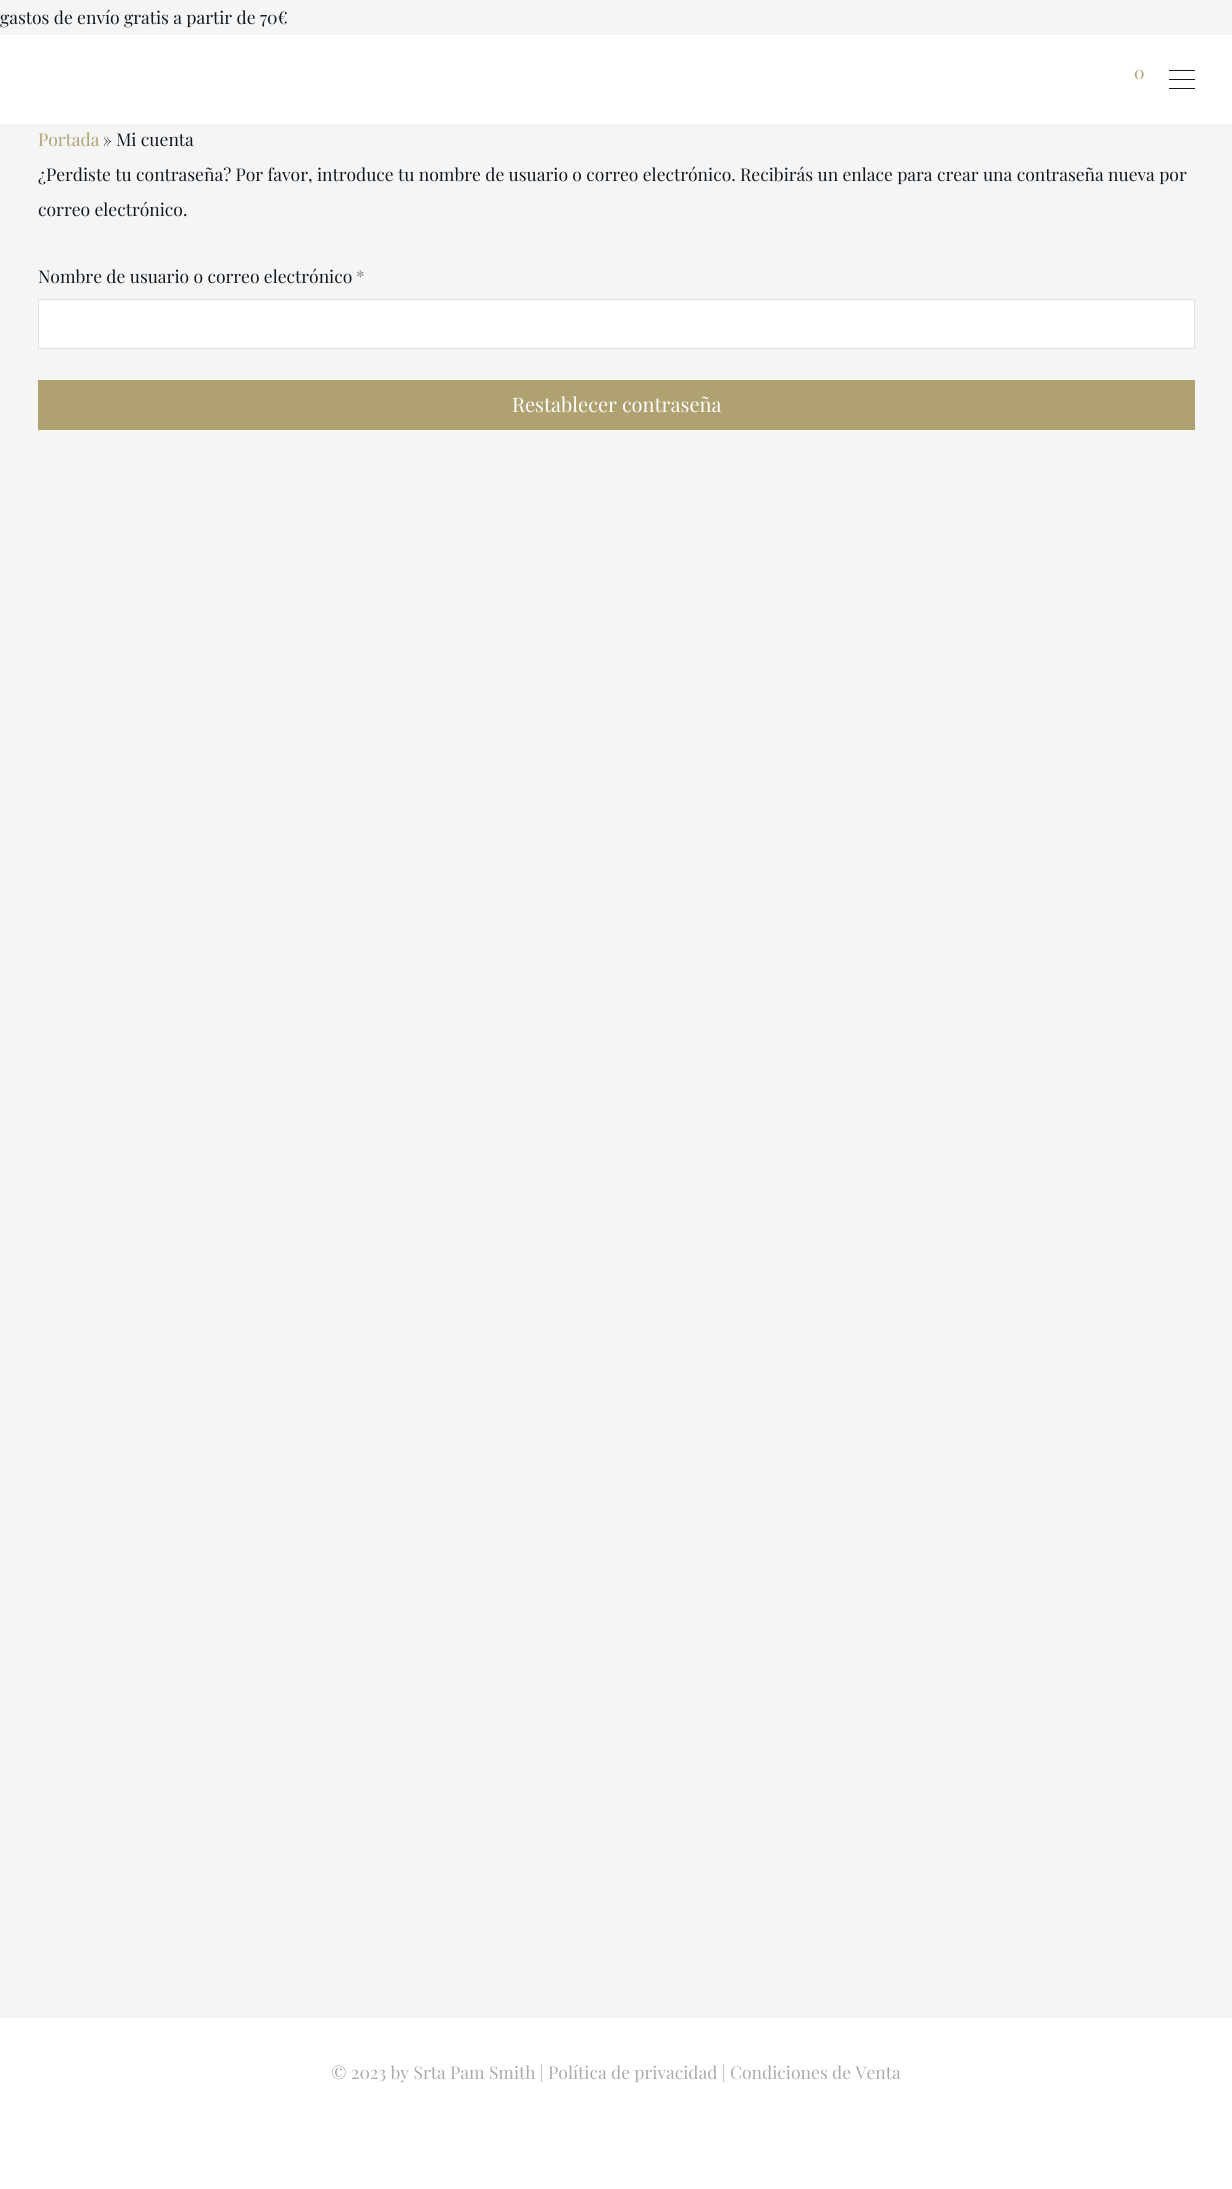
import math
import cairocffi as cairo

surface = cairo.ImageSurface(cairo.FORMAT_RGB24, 1232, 2189)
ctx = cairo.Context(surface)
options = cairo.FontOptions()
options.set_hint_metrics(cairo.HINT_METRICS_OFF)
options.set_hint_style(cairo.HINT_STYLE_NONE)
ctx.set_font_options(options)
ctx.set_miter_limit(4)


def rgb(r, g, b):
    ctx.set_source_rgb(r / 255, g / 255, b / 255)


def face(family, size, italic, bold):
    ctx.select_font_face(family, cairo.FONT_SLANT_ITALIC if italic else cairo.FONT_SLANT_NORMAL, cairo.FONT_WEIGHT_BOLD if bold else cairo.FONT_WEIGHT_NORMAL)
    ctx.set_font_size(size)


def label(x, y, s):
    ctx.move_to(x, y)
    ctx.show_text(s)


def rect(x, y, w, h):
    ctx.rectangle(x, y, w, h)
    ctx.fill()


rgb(255, 255, 255)
ctx.paint()
rgb(245, 245, 245)
rect(0, 0, 1232, 2018)
face('Playfair Display', 17.5, 0, 0)
rgb(16, 24, 32)
label(0, 24, 'gastos de envío gratis a partir de 70€')
rgb(255, 255, 255)
rect(0, 35, 1232, 89)
rgb(176, 161, 113)
label(1134, 79, '0')
rgb(16, 24, 32)
rect(1169, 70, 26, 1)
rect(1169, 79, 26, 1)
rect(1169, 88, 26, 1)
rgb(176, 161, 113)
label(38, 146, 'Portada')
rgb(16, 24, 32)
label(103, 146, '» Mi cuenta')
label(38, 181, '¿Perdiste tu contraseña? Por favor, introduce tu nombre de usuario o correo electrónico. Recibirás un enlace para crear una contraseña nueva por')
label(38, 216, 'correo electrónico.')
label(38, 283, 'Nombre de usuario o correo electrónico')
rgb(131, 135, 139)
label(356, 283, '*')
rgb(255, 255, 255)
ctx.rectangle(38.5, 299.5, 1156, 49)
ctx.fill_preserve()
rgb(225, 225, 225)
ctx.set_line_width(1)
ctx.stroke()
rgb(176, 161, 113)
rect(38, 380, 1157, 50)
face('Playfair Display', 20, 0, 0)
rgb(255, 255, 255)
label(512, 412, 'Restablecer contraseña')
face('Playfair Display', 17.5, 0, 0)
rgb(170, 170, 170)
label(331, 2079, '© 2023 by Srta Pam Smith | Política de privacidad | Condiciones de Venta')
surface.write_to_png('render.png')
